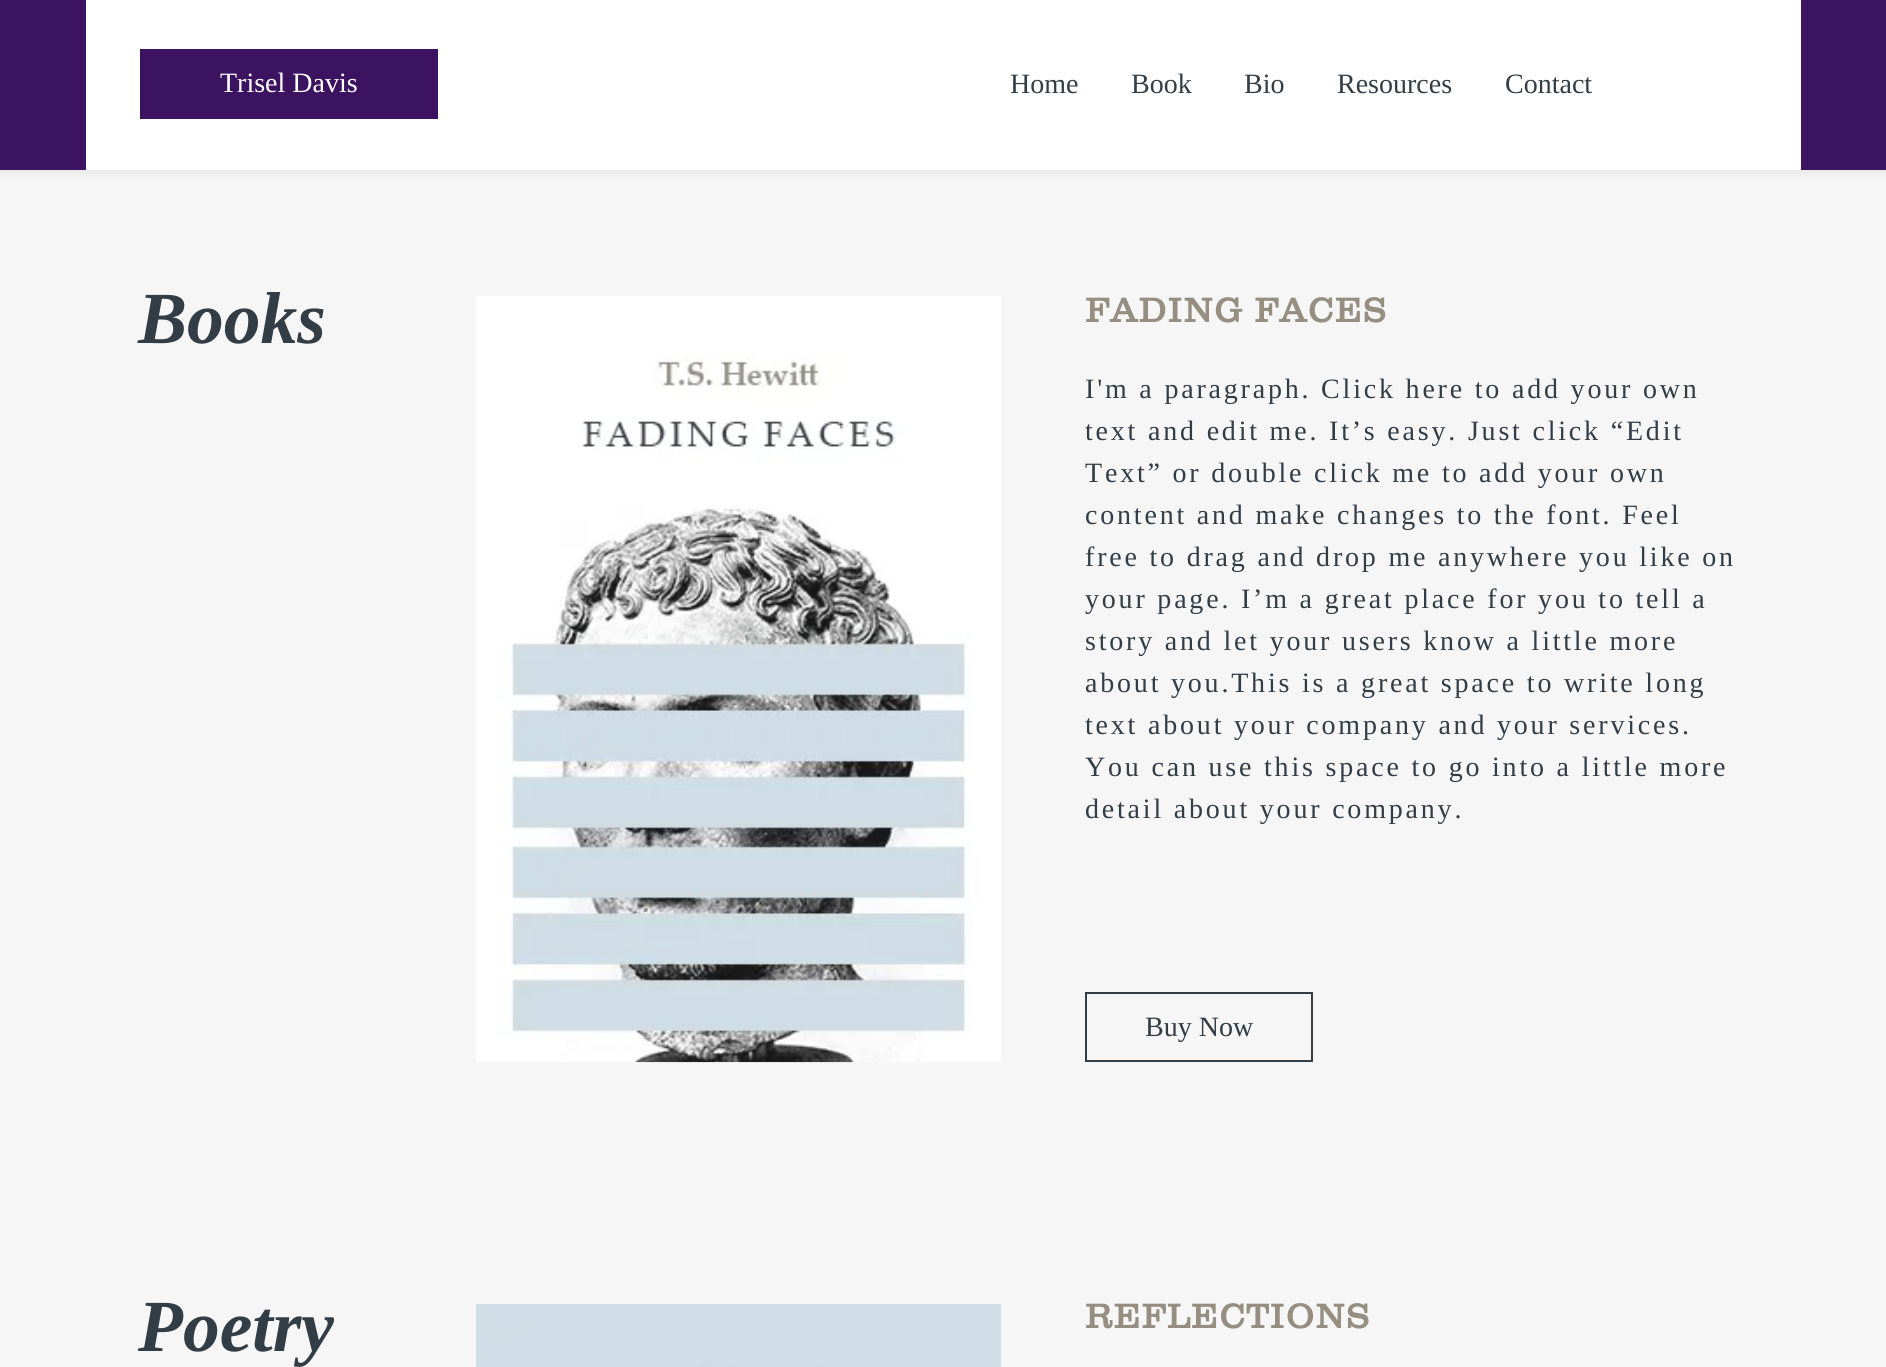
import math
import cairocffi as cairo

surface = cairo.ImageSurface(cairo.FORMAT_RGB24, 1886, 1367)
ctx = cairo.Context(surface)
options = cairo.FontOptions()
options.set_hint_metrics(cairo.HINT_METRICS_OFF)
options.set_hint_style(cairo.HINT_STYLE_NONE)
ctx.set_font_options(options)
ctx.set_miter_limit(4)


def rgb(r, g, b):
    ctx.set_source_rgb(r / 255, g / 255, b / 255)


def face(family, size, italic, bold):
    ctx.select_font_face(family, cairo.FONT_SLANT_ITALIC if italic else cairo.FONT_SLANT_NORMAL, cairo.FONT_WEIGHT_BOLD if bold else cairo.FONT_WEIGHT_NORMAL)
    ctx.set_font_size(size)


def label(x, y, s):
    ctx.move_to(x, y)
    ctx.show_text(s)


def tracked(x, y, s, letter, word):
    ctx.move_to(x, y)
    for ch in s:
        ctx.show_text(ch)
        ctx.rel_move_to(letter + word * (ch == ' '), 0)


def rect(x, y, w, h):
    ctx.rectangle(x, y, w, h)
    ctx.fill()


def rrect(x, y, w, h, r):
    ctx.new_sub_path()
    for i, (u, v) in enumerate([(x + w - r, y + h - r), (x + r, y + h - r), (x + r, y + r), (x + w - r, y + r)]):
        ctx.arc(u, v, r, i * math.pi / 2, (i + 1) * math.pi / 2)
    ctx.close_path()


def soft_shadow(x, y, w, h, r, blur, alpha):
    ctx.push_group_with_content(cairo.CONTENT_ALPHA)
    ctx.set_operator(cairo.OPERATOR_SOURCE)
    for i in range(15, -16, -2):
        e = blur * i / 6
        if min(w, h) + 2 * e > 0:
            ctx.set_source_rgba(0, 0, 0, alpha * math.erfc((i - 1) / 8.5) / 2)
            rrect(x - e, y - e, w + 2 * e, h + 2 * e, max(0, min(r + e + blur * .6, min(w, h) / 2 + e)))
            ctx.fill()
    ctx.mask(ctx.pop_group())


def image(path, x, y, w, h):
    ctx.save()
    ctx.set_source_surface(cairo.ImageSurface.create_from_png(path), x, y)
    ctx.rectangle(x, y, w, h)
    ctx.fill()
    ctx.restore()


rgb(246, 246, 247)
ctx.paint()
rgb(0, 0, 0)
soft_shadow(-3, -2, 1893, 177, 0, 4.5, 0.05)
rgb(60, 19, 97)
rect(0, 0, 1886, 170)
rgb(255, 255, 255)
rect(86, 0, 1715, 170)
rgb(60, 19, 97)
rect(140, 49, 298, 70)
face('Liberation Serif', 28, 0, 0)
rgb(255, 255, 255)
label(220, 92, 'Trisel Davis')
rgb(50, 61, 70)
label(1010, 93, 'Home')
label(1131, 93, 'Book')
label(1244, 93, 'Bio')
label(1337, 93, 'Resources')
label(1505, 93, 'Contact')
face('Liberation Serif', 73.5, 1, 1)
label(138, 343, 'Books')
image('image0.png', 476, 296, 525, 767)
face('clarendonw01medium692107', 35, 0, 1)
rgb(150, 142, 129)
tracked(1085, 322, 'FADING FACES', 1.75, 0)
face('Liberation Serif', 28, 0, 0)
rgb(50, 61, 70)
tracked(1085, 398, 'I\'m a paragraph. Click here to add your own', 2.8, 0)
tracked(1085, 440, 'text and edit me. It’s easy. Just click “Edit', 2.8, 0)
tracked(1085, 482, 'Text” or double click me to add your own', 2.8, 0)
tracked(1085, 524, 'content and make changes to the font. Feel', 2.8, 0)
tracked(1085, 566, 'free to drag and drop me anywhere you like on', 2.8, 0)
tracked(1085, 608, 'your page. I’m a great place for you to tell a', 2.8, 0)
tracked(1085, 650, 'story and let your users know a little more', 2.8, 0)
tracked(1085, 692, 'about you.This is a great space to write long', 2.8, 0)
tracked(1085, 734, 'text about your company and your services.', 2.8, 0)
tracked(1085, 776, 'You can use this space to go into a little more', 2.8, 0)
tracked(1085, 818, 'detail about your company.', 2.8, 0)
ctx.rectangle(1086, 993, 226, 68)
ctx.stroke()
label(1145, 1036, 'Buy Now')
face('Liberation Serif', 73.5, 1, 1)
label(138, 1351, 'Poetry')
image('image1.png', 476, 1304, 525, 63)
face('clarendonw01medium692107', 35, 0, 1)
rgb(150, 142, 129)
tracked(1085, 1328, 'REFLECTIONS', 1.75, 0)
surface.write_to_png('render.png')
